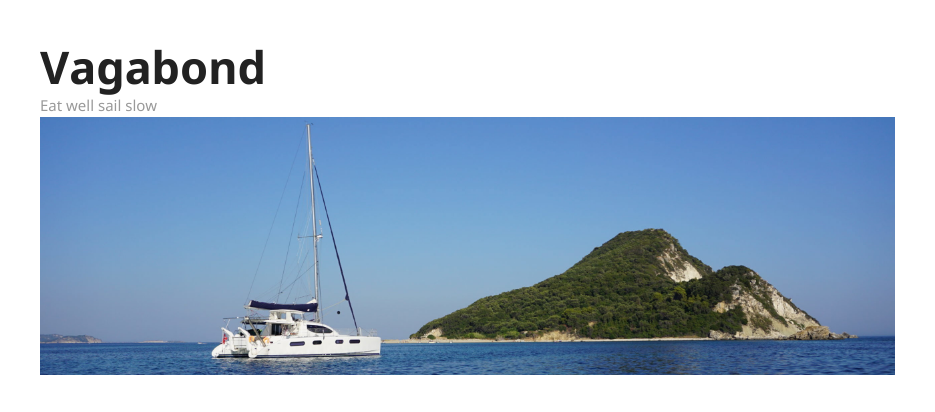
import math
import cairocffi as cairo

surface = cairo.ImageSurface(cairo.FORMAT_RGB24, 935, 412)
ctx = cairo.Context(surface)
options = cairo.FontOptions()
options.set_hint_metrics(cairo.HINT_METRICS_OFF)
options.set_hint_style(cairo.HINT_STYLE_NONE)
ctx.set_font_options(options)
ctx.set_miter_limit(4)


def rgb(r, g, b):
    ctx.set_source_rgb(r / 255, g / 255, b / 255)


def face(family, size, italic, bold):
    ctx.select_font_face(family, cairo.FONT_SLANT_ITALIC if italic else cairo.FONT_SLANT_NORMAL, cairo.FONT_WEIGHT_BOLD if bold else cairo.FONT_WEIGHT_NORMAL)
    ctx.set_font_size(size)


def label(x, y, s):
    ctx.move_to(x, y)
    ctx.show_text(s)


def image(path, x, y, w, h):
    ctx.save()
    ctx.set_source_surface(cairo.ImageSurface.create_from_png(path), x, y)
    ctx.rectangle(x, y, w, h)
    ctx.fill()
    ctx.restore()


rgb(255, 255, 255)
ctx.paint()
face('Noto Sans', 45, 0, 1)
rgb(34, 34, 34)
label(40, 84, 'Vagabond')
face('Noto Sans', 15, 0, 0)
rgb(153, 153, 153)
label(40, 111, 'Eat well sail slow')
image('image0.png', 40, 117, 855, 258)
surface.write_to_png('render.png')
